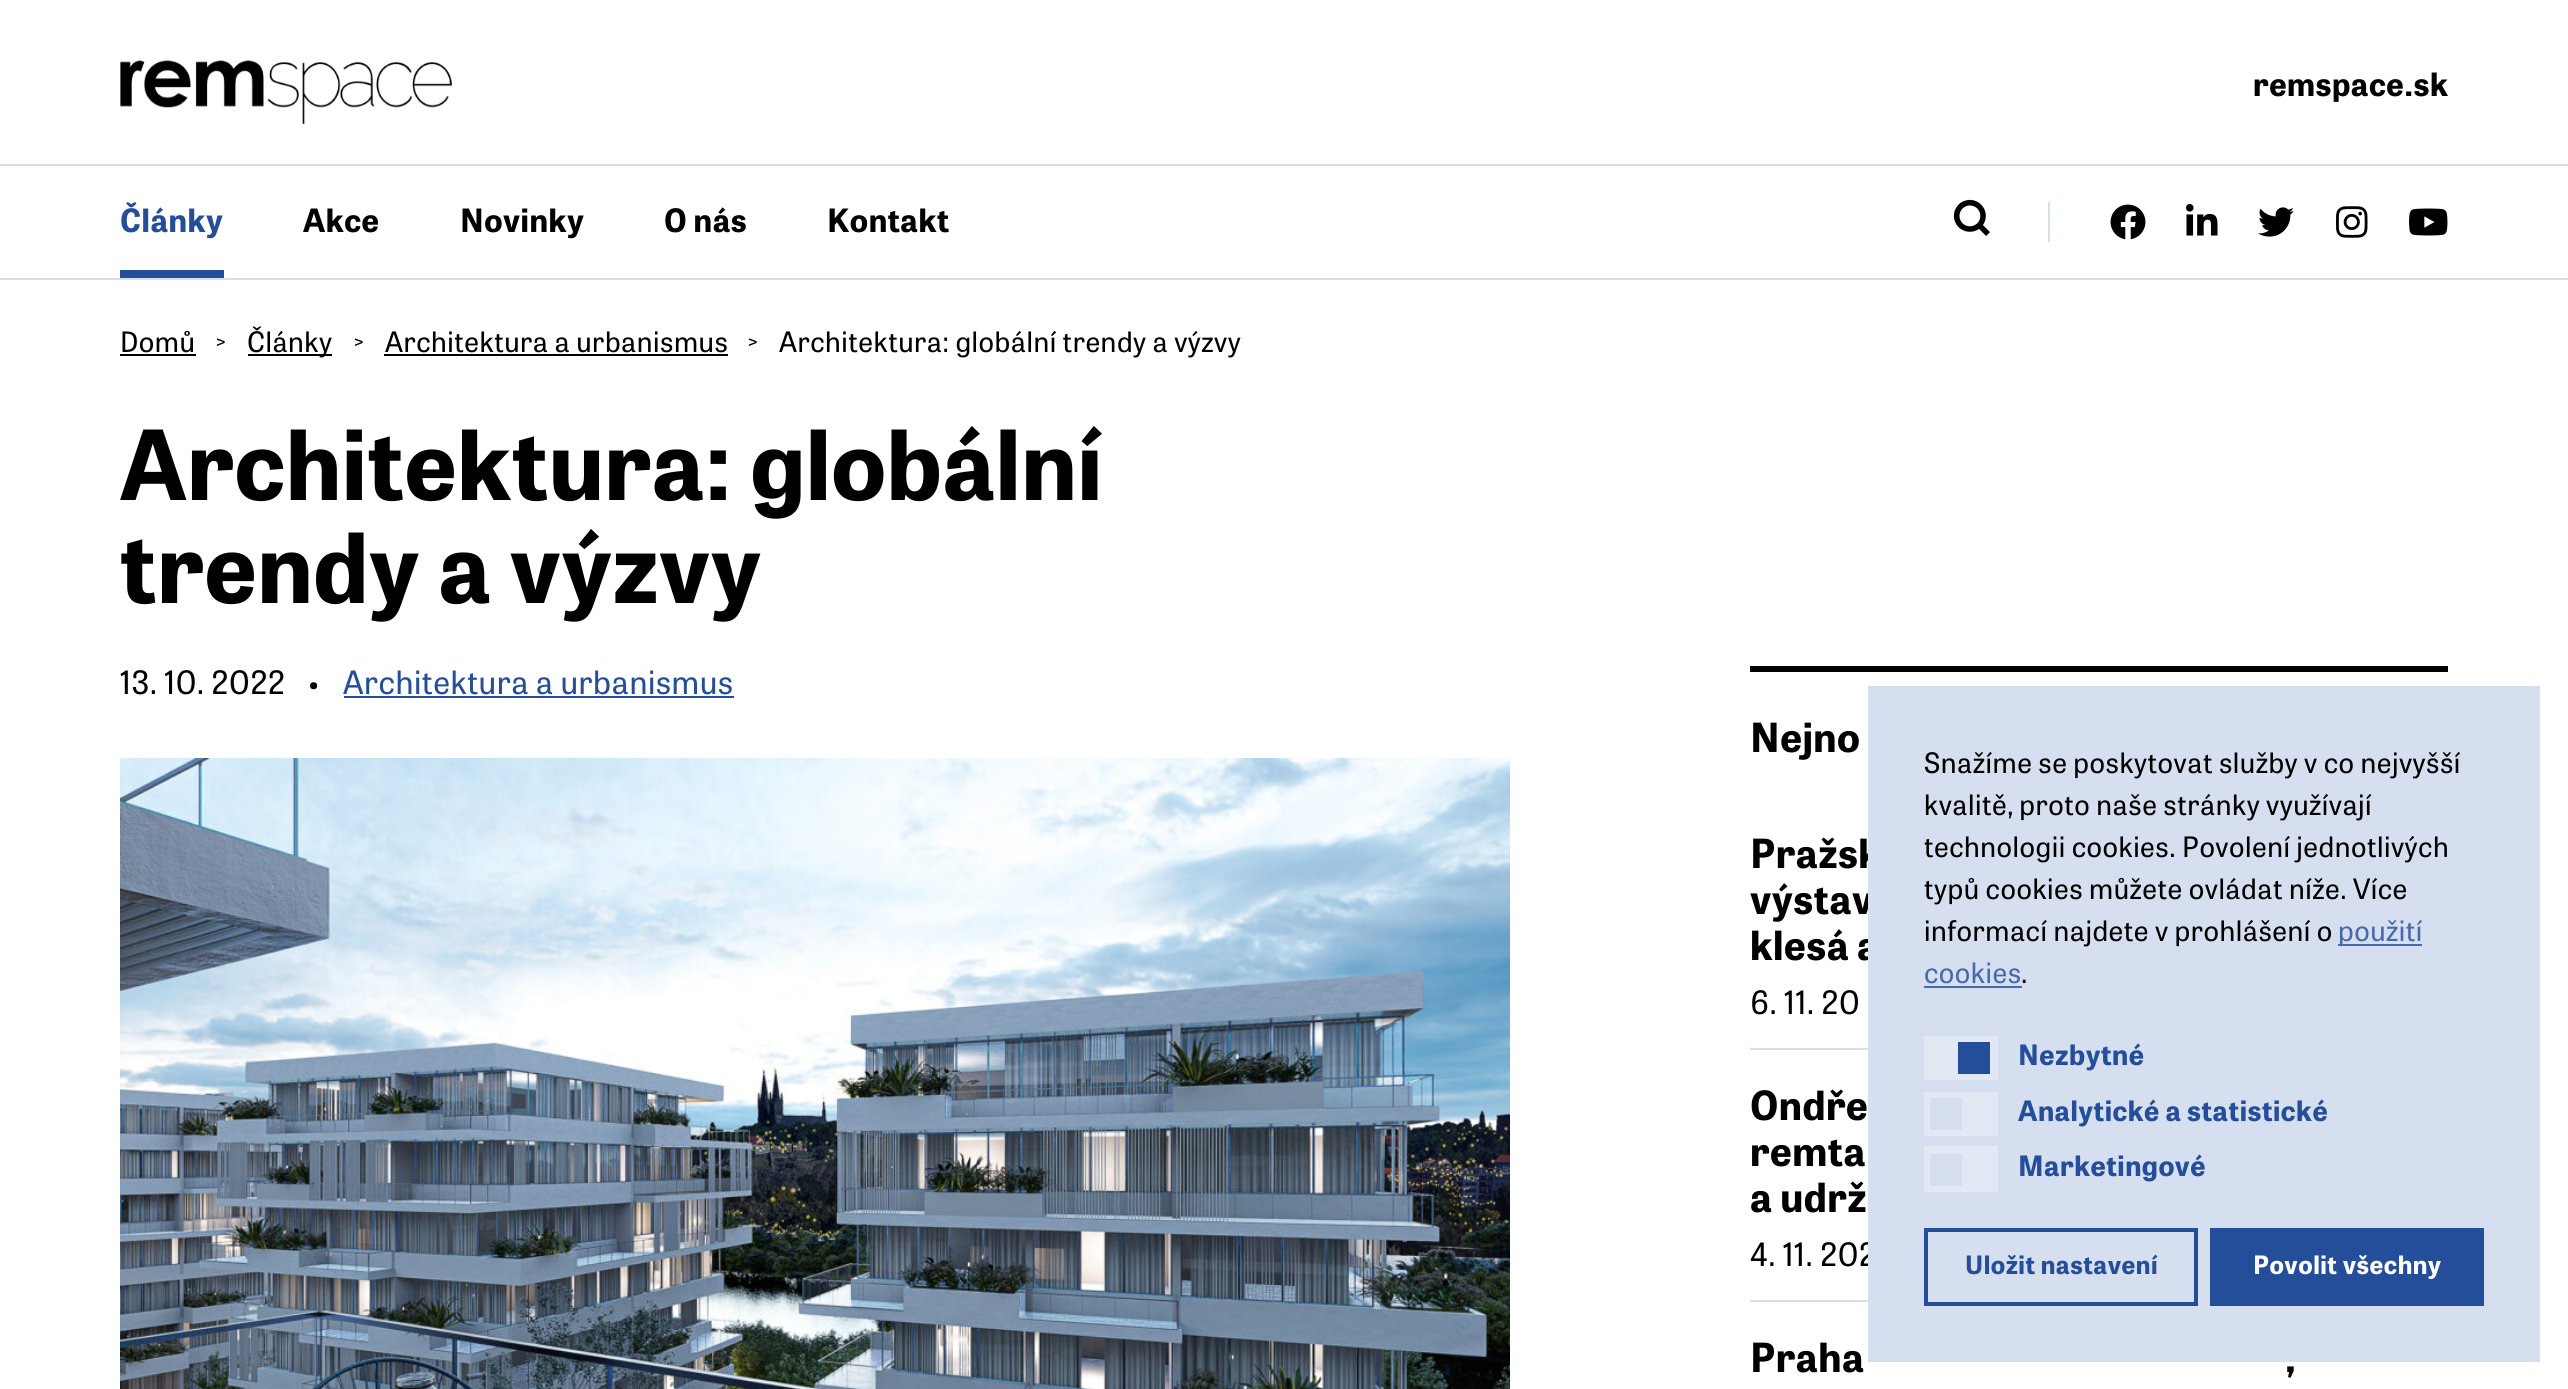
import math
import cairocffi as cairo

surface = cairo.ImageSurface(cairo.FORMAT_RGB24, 2568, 1389)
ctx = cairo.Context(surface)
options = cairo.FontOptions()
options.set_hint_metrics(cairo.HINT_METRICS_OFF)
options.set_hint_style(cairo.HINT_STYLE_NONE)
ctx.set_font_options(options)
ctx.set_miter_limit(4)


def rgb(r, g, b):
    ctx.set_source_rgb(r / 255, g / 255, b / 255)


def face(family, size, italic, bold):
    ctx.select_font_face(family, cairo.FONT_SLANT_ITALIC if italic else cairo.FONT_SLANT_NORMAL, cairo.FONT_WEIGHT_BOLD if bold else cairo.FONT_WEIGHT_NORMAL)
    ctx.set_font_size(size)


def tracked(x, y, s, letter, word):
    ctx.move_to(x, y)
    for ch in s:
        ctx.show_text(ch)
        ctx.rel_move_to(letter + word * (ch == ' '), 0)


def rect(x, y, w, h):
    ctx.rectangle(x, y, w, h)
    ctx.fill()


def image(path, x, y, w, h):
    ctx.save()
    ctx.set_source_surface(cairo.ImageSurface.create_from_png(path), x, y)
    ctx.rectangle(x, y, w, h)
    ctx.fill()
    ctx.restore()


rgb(255, 255, 255)
ctx.paint()
rgb(213, 223, 240)
rect(0, 164, 2568, 2)
image('image0.png', 120, 60, 332, 64)
face('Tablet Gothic', 32, 0, 1)
rgb(0, 0, 0)
tracked(2253, 96, 'remspace.sk', 0.5, 0)
rgb(213, 223, 240)
rect(0, 278, 2568, 2)
rgb(36, 77, 154)
rect(120, 270, 104, 8)
tracked(120, 232, 'Články', 0.5, 0)
rgb(0, 0, 0)
tracked(303, 232, 'Akce', 0.5, 0)
tracked(460, 232, 'Novinky', 0.5, 0)
tracked(664, 232, 'O nás', 0.5, 0)
tracked(827, 232, 'Kontakt', 0.5, 0)
image('image1.png', 1953, 199, 37, 37)
rgb(213, 223, 240)
rect(2048, 202, 2, 40)
image('image2.png', 2110, 204, 36, 36)
image('image3.png', 2186, 204, 32, 32)
image('image4.png', 2258, 207, 36, 30)
image('image5.png', 2336, 206, 32, 32)
image('image6.png', 2409, 208, 39, 28)
face('Tablet Gothic', 28, 0, 0)
rgb(0, 0, 0)
tracked(120, 352, 'Domů', 0.5, 0)
rect(120, 354, 76, 2)
face('Tablet Gothic', 20, 0, 0)
tracked(215, 348, '>', 0.5, 0)
rect(248, 354, 84, 2)
face('Tablet Gothic', 28, 0, 0)
tracked(247, 352, 'Články', 0.5, 0)
face('Tablet Gothic', 20, 0, 0)
tracked(353, 348, '>', 0.5, 0)
face('Tablet Gothic', 28, 0, 0)
tracked(385, 352, 'Architektura a urbanismus', 0.5, 0)
rect(384, 354, 344, 2)
face('Tablet Gothic', 20, 0, 0)
tracked(747, 348, '>', 0.5, 0)
face('Tablet Gothic', 28, 0, 0)
tracked(779, 352, 'Architektura: globální trendy a výzvy', 0.5, 0)
face('Tablet Gothic', 96, 0, 1)
tracked(120, 500, 'Architektura: globální', 0.5, 0)
tracked(120, 603, 'trendy a výzvy', 0.5, 0)
face('Tablet Gothic', 32, 0, 0)
tracked(120, 694, '13. 10. 2022', 0.5, 0)
face('Tablet Gothic', 36, 0, 0)
tracked(305, 698, '•', 0.5, 0)
face('Tablet Gothic', 32, 0, 0)
rgb(36, 77, 154)
tracked(343, 694, 'Architektura a urbanismus', 0.5, 0)
rect(344, 696, 390, 2)
image('image7.png', 120, 758, 1390, 631)
rgb(0, 0, 0)
rect(1750, 666, 698, 6)
face('Tablet Gothic', 40, 0, 1)
tracked(1750, 752, 'Nejno', 0.5, 0)
tracked(1750, 868, 'Pražsk', 0.5, 0)
tracked(1750, 914, 'výstav', 0.5, 0)
tracked(1750, 960, 'klesá a', 0.5, 0)
face('Tablet Gothic', 32, 0, 0)
tracked(1750, 1014, '6. 11. 20', 0.5, 0)
rgb(213, 223, 240)
rect(1750, 1048, 118, 2)
face('Tablet Gothic', 40, 0, 1)
rgb(0, 0, 0)
tracked(1750, 1120, 'Ondře', 0.5, 0)
tracked(1750, 1166, 'remta', 0.5, 0)
tracked(1750, 1212, 'a udrž', 0.5, 0)
face('Tablet Gothic', 32, 0, 0)
tracked(1750, 1266, '4. 11. 202', 0.5, 0)
rgb(213, 223, 240)
rect(1750, 1300, 118, 2)
face('Tablet Gothic', 40, 0, 1)
rgb(0, 0, 0)
tracked(1750, 1372, 'Praha', 0.5, 0)
tracked(2285, 1372, ',', 0.5, 0)
rgb(213, 223, 240)
rect(1868, 686, 672, 676)
face('Tablet Gothic', 28, 0, 0)
rgb(0, 0, 0)
tracked(1924, 773, 'Snažíme se poskytovat služby v co nejvyšší', 0.5, 0)
tracked(1924, 815, 'kvalitě, proto naše stránky využívají', 0.5, 0)
tracked(1924, 857, 'technologii cookies. Povolení jednotlivých', 0.5, 0)
tracked(1924, 899, 'typů cookies můžete ovládat níže. Více', 0.5, 0)
tracked(1924, 941, 'informací najdete v prohlášení o', 0.5, 0)
rgb(71, 106, 171)
rect(2338, 944, 84, 2)
tracked(2338, 941, 'použití', 0.5, 0)
tracked(1924, 983, 'cookies', 0.5, 0)
rect(1924, 986, 98, 2)
rgb(0, 0, 0)
tracked(2021, 983, '.', 0.5, 0)
rgb(226, 233, 245)
rect(1924, 1036, 74, 44)
rgb(36, 77, 154)
rect(1958, 1042, 32, 32)
face('Tablet Gothic', 28, 0, 1)
tracked(2018, 1065, 'Nezbytné', 0.5, 0)
rgb(226, 233, 245)
rect(1924, 1092, 74, 44)
rgb(213, 223, 240)
rect(1930, 1098, 32, 32)
rgb(36, 77, 154)
tracked(2018, 1121, 'Analytické a statistické', 0.5, 0)
rgb(226, 233, 245)
rect(1924, 1146, 74, 46)
rgb(213, 223, 240)
rect(1930, 1154, 32, 32)
rgb(36, 77, 154)
tracked(2018, 1176, 'Marketingové', 0.5, 0)
ctx.rectangle(1926, 1230, 270, 74)
ctx.set_line_width(4)
ctx.stroke()
face('Tablet Gothic', 25.25, 0, 1)
tracked(1965, 1274, 'Uložit nastavení', 0.5, 0)
rect(2210, 1228, 274, 78)
rgb(255, 255, 255)
tracked(2253, 1274, 'Povolit všechny', 0.5, 0)
surface.write_to_png('render.png')
